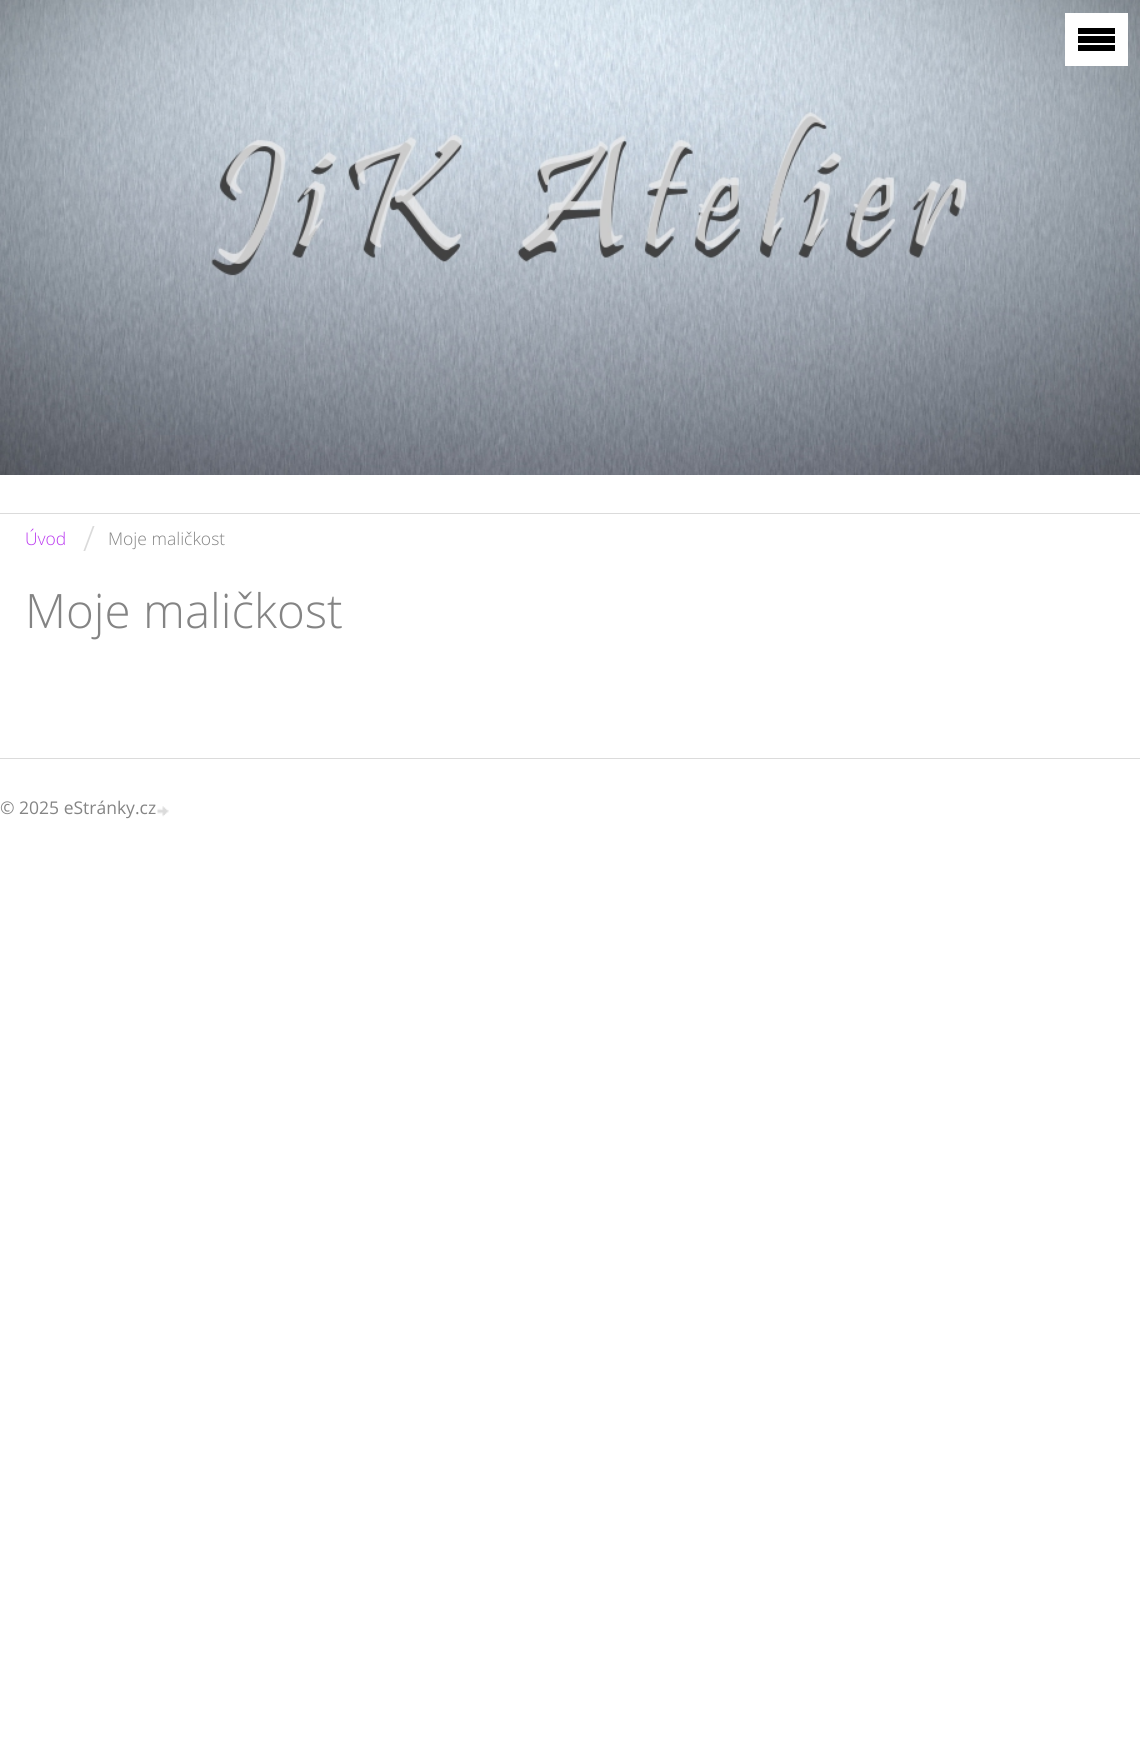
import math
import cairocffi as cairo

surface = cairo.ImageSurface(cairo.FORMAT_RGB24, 1140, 1763)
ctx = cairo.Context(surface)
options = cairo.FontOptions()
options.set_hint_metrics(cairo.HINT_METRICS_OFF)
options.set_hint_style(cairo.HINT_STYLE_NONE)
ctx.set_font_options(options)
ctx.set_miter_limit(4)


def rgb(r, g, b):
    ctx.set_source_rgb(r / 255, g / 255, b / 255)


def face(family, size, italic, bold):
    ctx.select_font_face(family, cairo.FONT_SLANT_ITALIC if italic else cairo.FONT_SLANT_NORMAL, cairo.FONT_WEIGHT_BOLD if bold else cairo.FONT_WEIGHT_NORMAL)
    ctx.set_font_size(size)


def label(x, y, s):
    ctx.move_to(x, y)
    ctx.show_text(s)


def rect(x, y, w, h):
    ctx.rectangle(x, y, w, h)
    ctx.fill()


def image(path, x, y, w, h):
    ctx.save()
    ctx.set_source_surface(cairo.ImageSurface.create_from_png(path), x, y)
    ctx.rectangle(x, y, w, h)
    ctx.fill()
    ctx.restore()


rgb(255, 255, 255)
ctx.paint()
image('image0.png', 0, 0, 1140, 475)
rgb(255, 255, 255)
rect(1065, 13, 63, 53)
rgb(0, 0, 0)
rect(1078, 28, 37, 6)
rect(1078, 36, 37, 7)
rect(1078, 45, 37, 6)
rgb(219, 219, 219)
rect(0, 513, 1140, 1)
face('Open Sans Light', 17.5, 0, 0)
rgb(187, 58, 240)
label(25, 545, 'Úvod')
face('Open Sans Light', 35, 0, 0)
rgb(218, 218, 218)
label(83, 551, '/')
face('Open Sans Light', 17.5, 0, 0)
rgb(132, 132, 132)
label(108, 545, 'Moje maličkost')
face('Open Sans Light', 47.5, 0, 0)
label(25, 628, 'Moje maličkost')
rgb(219, 219, 219)
rect(0, 758, 1140, 1)
face('Open Sans', 17.5, 0, 0)
rgb(132, 132, 132)
label(0, 814, '© 2025 eStránky.cz')
image('image1.png', 157, 806, 12, 11)
surface.write_to_png('render.png')
